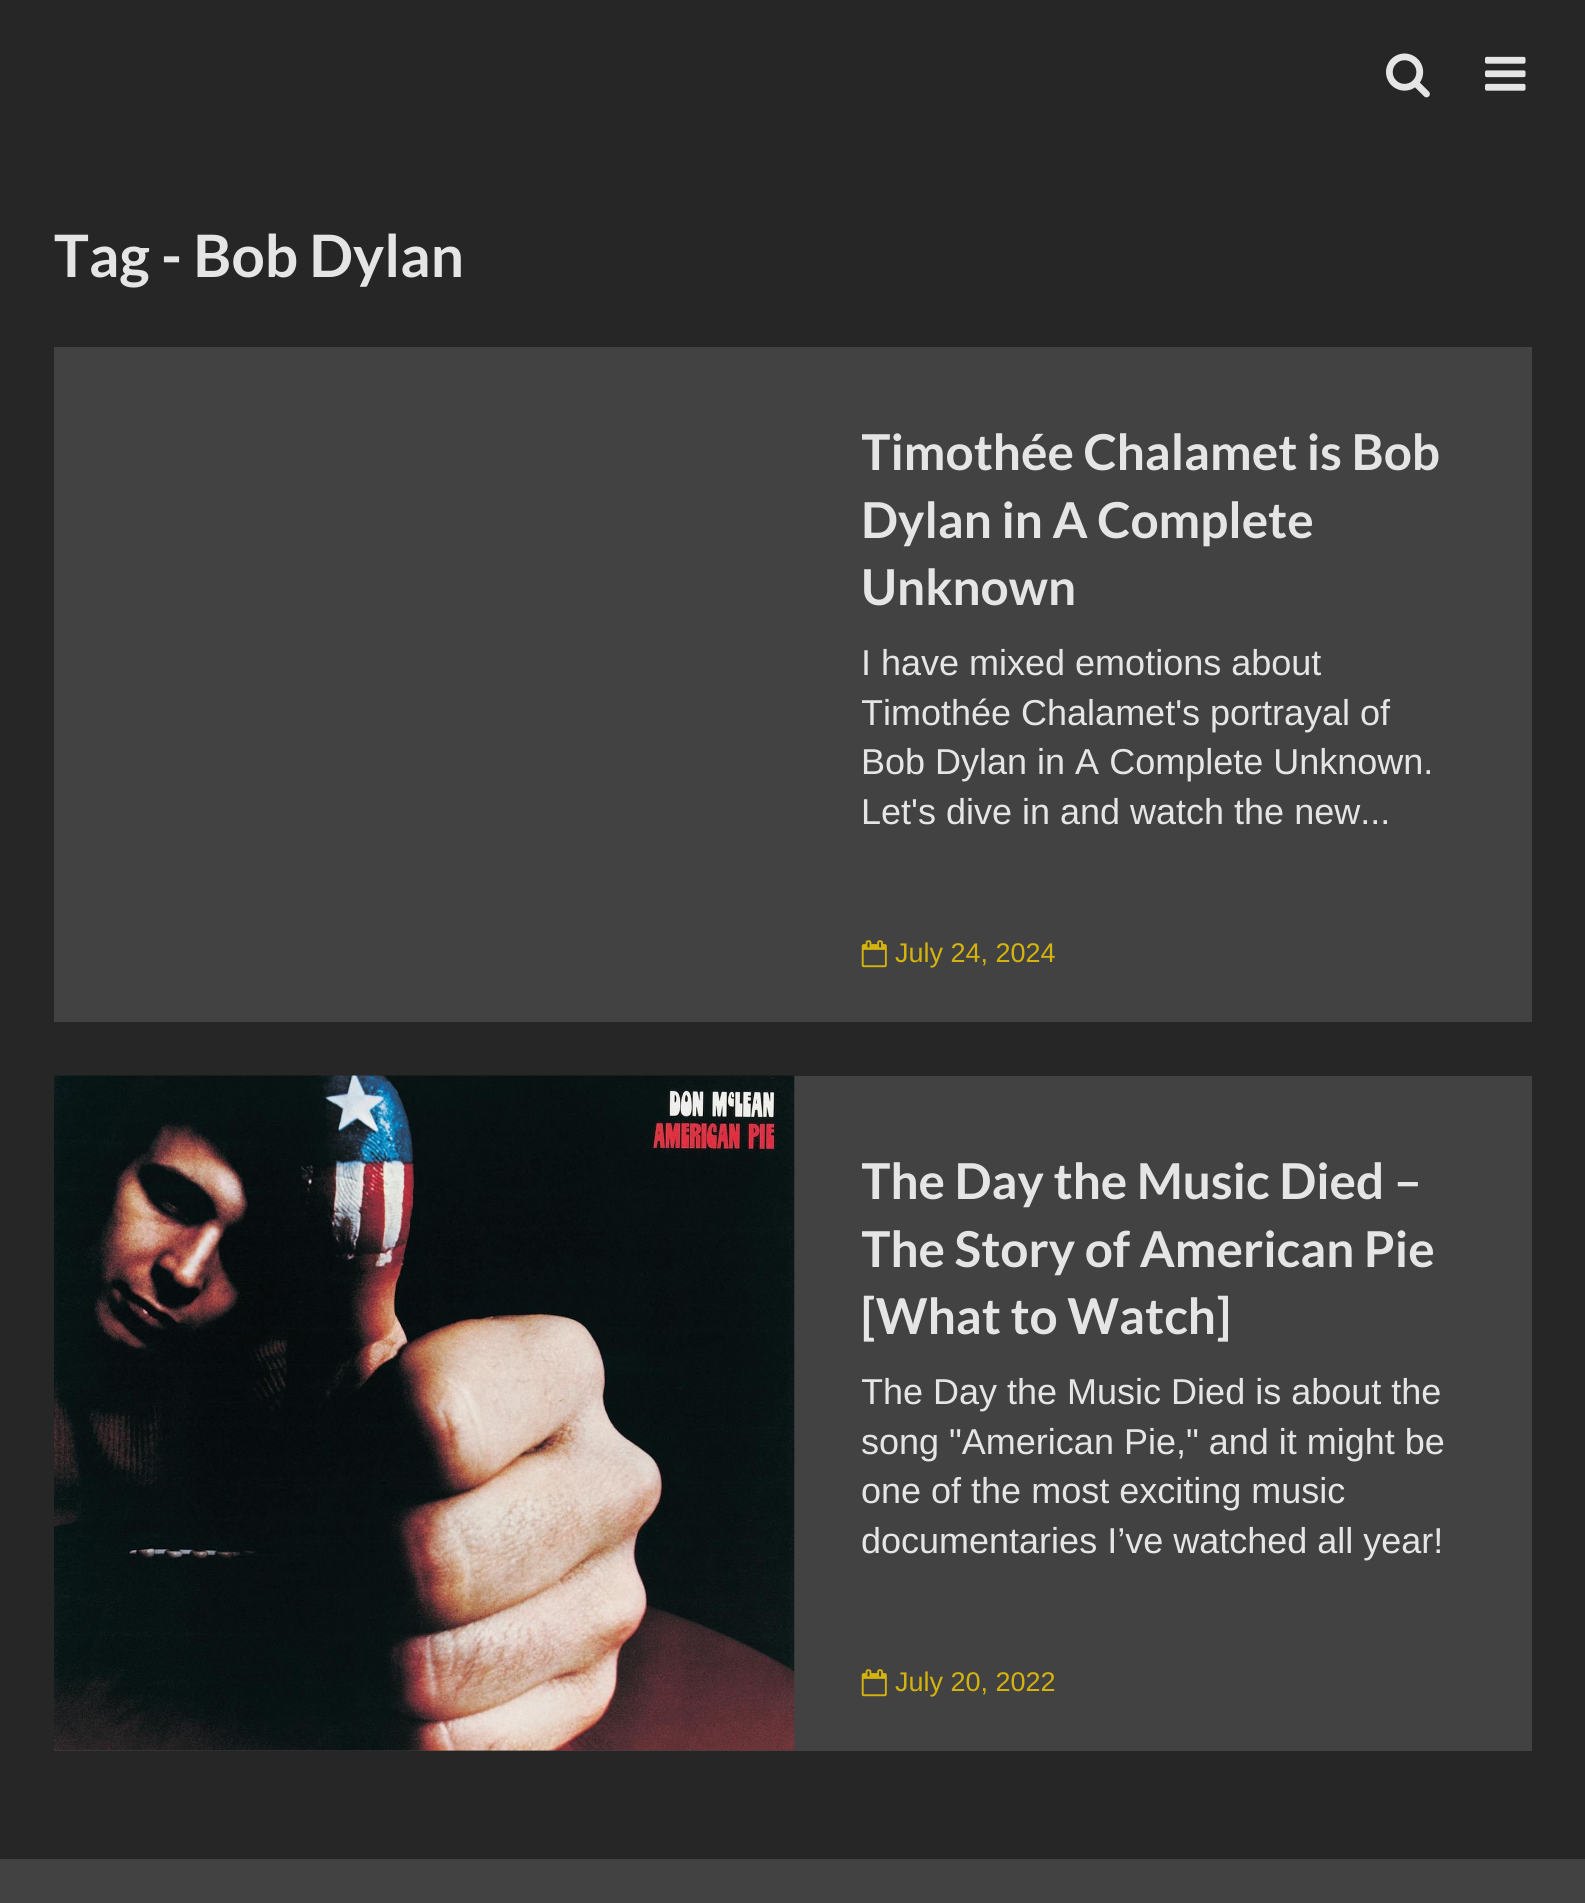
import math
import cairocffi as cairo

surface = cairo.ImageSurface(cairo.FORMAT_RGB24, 1585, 1903)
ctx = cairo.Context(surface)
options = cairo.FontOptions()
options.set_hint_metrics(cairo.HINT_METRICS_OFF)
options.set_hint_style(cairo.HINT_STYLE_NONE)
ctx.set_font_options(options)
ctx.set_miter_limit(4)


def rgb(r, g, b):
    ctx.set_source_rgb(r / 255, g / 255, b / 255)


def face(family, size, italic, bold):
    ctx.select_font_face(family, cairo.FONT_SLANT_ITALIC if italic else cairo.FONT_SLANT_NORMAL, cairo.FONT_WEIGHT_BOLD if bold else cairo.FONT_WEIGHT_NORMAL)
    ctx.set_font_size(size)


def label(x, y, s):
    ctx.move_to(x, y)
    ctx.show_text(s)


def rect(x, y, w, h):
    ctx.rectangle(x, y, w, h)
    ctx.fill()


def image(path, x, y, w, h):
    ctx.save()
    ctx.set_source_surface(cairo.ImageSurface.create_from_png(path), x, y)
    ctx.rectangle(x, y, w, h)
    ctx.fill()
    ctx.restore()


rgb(38, 38, 38)
ctx.paint()
image('image0.png', 1386, 53, 44, 45)
image('image1.png', 1485, 56, 41, 35)
face('Lato', 58.5, 0, 1)
rgb(229, 229, 229)
label(54, 277, 'Tag - Bob Dylan')
rgb(66, 66, 66)
rect(54, 347, 1478, 675)
ctx.save()
ctx.rectangle(862, 401, 589, 443)
ctx.clip()
face('Lato', 49.5, 0, 1)
rgb(229, 229, 229)
label(861, 470, 'Timothée Chalamet is Bob')
ctx.restore()
face('Lato', 49.5, 0, 1)
rgb(229, 229, 229)
label(861, 538, 'Dylan in A Complete')
label(861, 605, 'Unknown')
face('Liberation Sans', 36, 0, 0)
label(861, 675, 'I have mixed emotions about')
ctx.save()
ctx.rectangle(862, 401, 589, 443)
ctx.clip()
label(861, 725, 'Timothée Chalamet\'s portrayal of')
ctx.restore()
label(861, 774, 'Bob Dylan in A Complete Unknown.')
label(861, 824, 'Let\'s dive in and watch the new...')
image('image2.png', 861, 940, 26, 28)
face('Liberation Sans', 27, 0, 0)
rgb(212, 179, 13)
label(895, 962, 'July 24, 2024')
rgb(66, 66, 66)
rect(54, 1076, 1478, 675)
image('image3.png', 54, 1075, 741, 676)
ctx.save()
ctx.rectangle(862, 1130, 589, 443)
ctx.clip()
face('Lato', 49.5, 0, 1)
rgb(229, 229, 229)
label(861, 1199, 'The Day the Music Died –')
label(861, 1267, 'The Story of American Pie')
ctx.restore()
face('Lato', 49.5, 0, 1)
rgb(229, 229, 229)
label(861, 1334, '[What to Watch]')
ctx.save()
ctx.rectangle(862, 1130, 589, 443)
ctx.clip()
face('Liberation Sans', 36, 0, 0)
label(861, 1404, 'The Day the Music Died is about the')
ctx.restore()
face('Liberation Sans', 36, 0, 0)
label(861, 1454, 'song "American Pie," and it might be')
label(861, 1503, 'one of the most exciting music')
label(861, 1553, 'documentaries I’ve watched all year!')
image('image2.png', 861, 1669, 26, 28)
face('Liberation Sans', 27, 0, 0)
rgb(212, 179, 13)
label(895, 1691, 'July 20, 2022')
rgb(66, 66, 66)
rect(0, 1859, 1585, 44)
surface.write_to_png('render.png')
